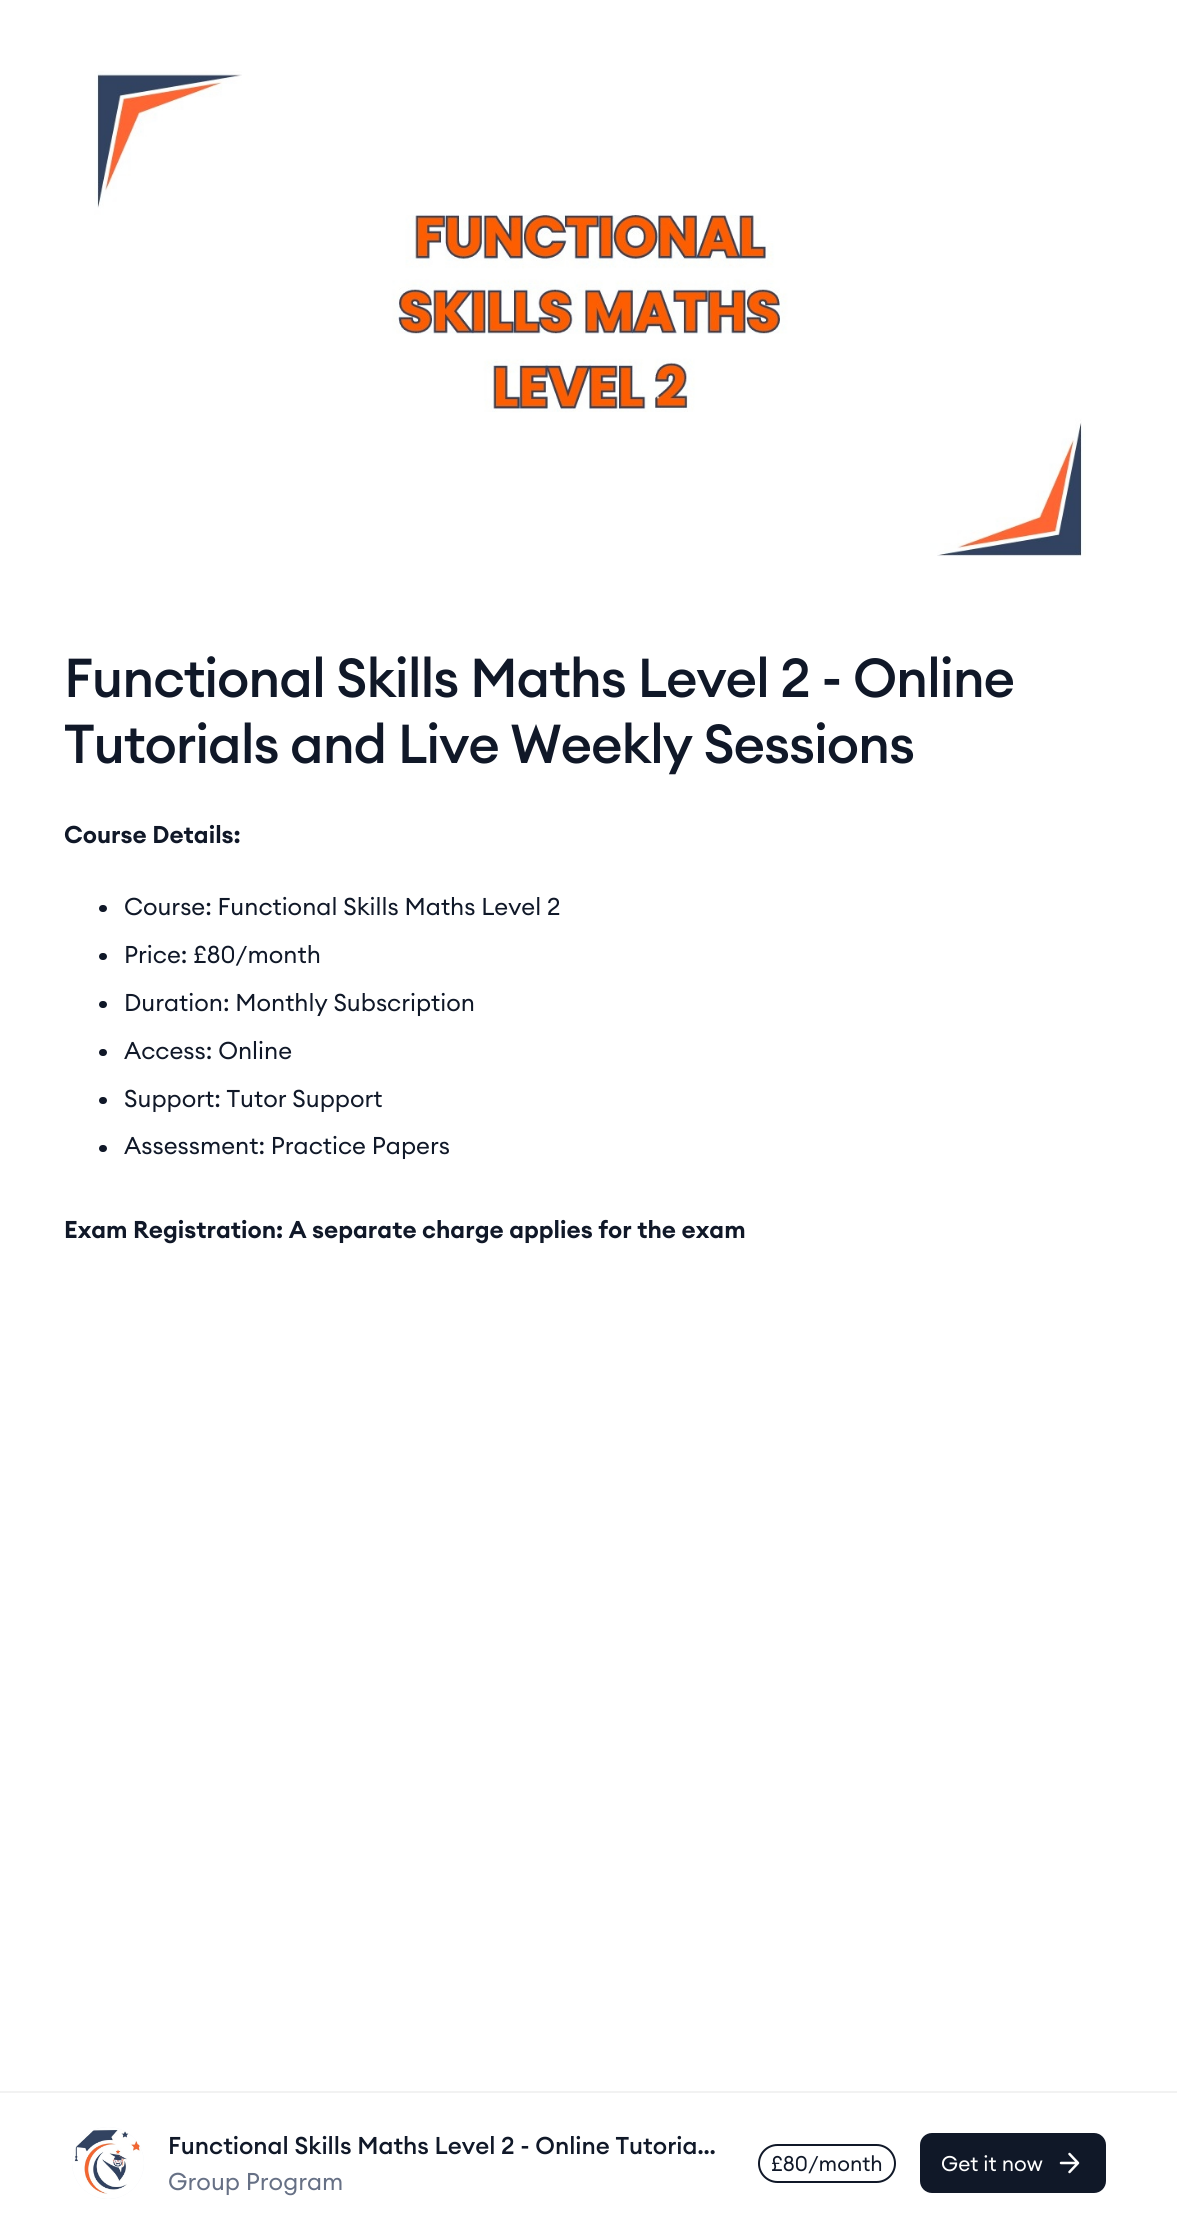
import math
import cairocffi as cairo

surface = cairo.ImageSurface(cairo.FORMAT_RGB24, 1177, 2234)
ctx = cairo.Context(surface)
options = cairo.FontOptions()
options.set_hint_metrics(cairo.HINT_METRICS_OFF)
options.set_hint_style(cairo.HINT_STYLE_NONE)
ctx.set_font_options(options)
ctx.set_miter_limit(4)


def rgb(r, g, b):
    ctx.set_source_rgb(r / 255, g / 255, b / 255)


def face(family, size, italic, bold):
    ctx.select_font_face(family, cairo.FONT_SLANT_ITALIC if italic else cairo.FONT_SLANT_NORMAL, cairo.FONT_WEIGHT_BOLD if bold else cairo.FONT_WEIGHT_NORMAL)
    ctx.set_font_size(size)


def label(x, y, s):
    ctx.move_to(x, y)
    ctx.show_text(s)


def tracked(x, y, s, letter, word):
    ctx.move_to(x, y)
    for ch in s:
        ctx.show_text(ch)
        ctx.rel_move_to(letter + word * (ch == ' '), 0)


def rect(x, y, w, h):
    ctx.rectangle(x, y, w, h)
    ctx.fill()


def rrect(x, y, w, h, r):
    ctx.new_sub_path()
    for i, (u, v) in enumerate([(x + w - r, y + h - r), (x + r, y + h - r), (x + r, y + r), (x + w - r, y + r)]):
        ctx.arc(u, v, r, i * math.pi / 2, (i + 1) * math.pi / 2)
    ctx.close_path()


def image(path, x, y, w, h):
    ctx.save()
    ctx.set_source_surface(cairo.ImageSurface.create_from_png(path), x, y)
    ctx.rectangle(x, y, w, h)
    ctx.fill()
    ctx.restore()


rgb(255, 255, 255)
ctx.paint()
image('image0.png', 94, 71, 992, 486)
face('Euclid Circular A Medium', 54, 0, 0)
rgb(16, 24, 40)
tracked(64, 697, 'Functional Skills Maths Level 2 - Online', -1.1, 0)
tracked(64, 763, 'Tutorials and Live Weekly Sessions', -1.1, 0)
face('Euclid Circular A SemiBold', 24, 0, 0)
label(64, 843, 'Course Details:')
rrect(99, 905, 8, 7, 3.5)
ctx.fill()
face('Euclid Circular A', 24, 0, 0)
label(124, 915, 'Course: Functional Skills Maths Level 2')
rrect(99, 953, 8, 7, 3.5)
ctx.fill()
label(124, 963, 'Price: £80/month')
rrect(99, 1001, 8, 7, 3.5)
ctx.fill()
label(124, 1011, 'Duration: Monthly Subscription')
rrect(99, 1049, 8, 7, 3.5)
ctx.fill()
label(124, 1059, 'Access: Online')
rrect(99, 1097, 8, 7, 3.5)
ctx.fill()
label(124, 1107, 'Support: Tutor Support')
rrect(99, 1145, 8, 7, 3.5)
ctx.fill()
label(124, 1154, 'Assessment: Practice Papers')
face('Euclid Circular A SemiBold', 24, 0, 0)
label(64, 1238, 'Exam Registration: A separate charge applies for the exam')
rgb(242, 242, 242)
rect(0, 2091, 1177, 2)
rgb(242, 244, 247)
ctx.new_path()
ctx.arc(108, 2163, 36, 0, 2 * math.pi)
ctx.fill()
image('image1.png', 72, 2127, 72, 72)
face('Euclid Circular A Medium', 24, 0, 0)
rgb(16, 24, 40)
label(168, 2154, 'Functional Skills Maths Level 2 - Online Tutoria…')
face('Euclid Circular A', 24, 0, 0)
rgb(102, 112, 133)
label(168, 2190, 'Group Program')
rrect(759, 2145, 136, 37, 18.5)
rgb(16, 24, 40)
ctx.stroke()
face('Euclid Circular A', 21, 0, 0)
label(771, 2171, '£80/month')
rrect(920, 2133, 186, 60, 12)
ctx.fill()
rgb(255, 255, 255)
label(941, 2171, 'Get it now')
ctx.new_path()
ctx.move_to(1061, 2163)
ctx.line_to(1078, 2163)
ctx.move_to(1078, 2163)
ctx.line_to(1069.5, 2154)
ctx.move_to(1078, 2163)
ctx.line_to(1069.5, 2172)
ctx.set_line_width(2.5)
ctx.set_line_cap(cairo.LINE_CAP_ROUND)
ctx.set_line_join(cairo.LINE_JOIN_ROUND)
ctx.stroke()
surface.write_to_png('render.png')
